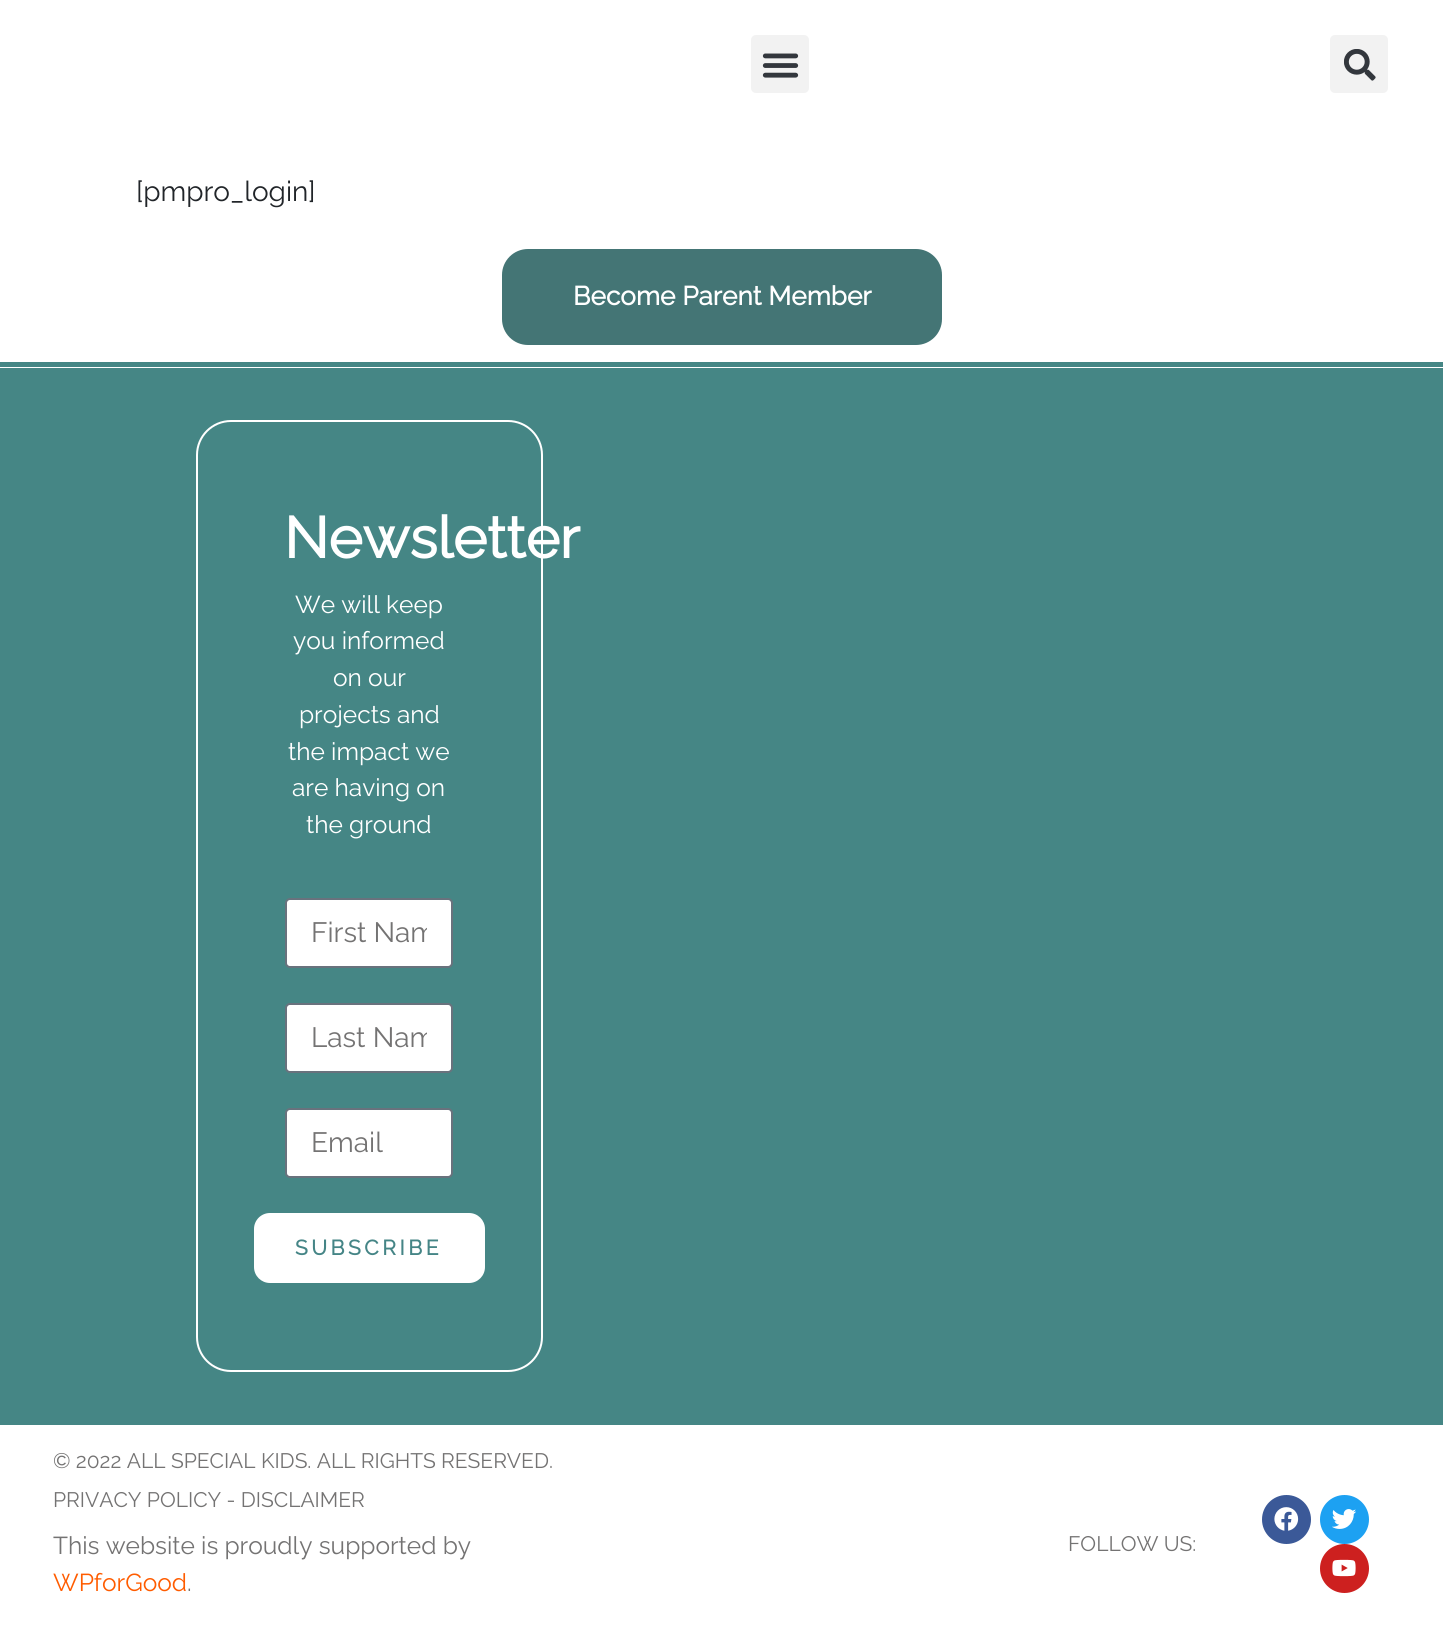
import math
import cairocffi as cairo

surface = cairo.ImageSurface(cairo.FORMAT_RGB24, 1443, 1631)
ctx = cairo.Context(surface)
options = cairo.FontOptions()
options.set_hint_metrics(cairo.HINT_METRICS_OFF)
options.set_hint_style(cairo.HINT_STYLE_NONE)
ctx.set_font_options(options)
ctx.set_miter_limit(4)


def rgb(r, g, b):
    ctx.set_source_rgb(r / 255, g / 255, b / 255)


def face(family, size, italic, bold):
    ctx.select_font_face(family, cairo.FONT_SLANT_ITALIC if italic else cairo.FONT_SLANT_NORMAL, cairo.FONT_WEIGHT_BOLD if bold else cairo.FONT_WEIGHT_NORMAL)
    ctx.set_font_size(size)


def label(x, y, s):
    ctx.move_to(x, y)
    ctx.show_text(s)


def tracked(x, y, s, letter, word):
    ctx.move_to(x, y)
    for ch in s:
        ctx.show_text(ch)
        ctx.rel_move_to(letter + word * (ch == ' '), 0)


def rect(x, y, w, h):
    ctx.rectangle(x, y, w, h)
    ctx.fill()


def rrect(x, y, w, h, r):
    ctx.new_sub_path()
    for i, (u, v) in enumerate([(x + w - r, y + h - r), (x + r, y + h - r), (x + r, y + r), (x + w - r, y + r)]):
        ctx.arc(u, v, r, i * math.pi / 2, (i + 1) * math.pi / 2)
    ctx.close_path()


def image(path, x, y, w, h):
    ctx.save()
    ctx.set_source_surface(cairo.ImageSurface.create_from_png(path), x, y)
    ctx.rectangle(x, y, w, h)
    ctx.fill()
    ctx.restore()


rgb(255, 255, 255)
ctx.paint()
rgb(242, 242, 242)
rrect(751, 35, 58, 58, 5)
ctx.fill()
image('image0.png', 762, 53, 37, 25)
rrect(1330, 35, 58, 58, 5)
ctx.fill()
image('image1.png', 1344, 49, 32, 32)
face('Raleway', 28, 0, 0)
rgb(33, 37, 41)
label(136, 201, '[pmpro_login]')
rgb(68, 117, 117)
rrect(502, 249, 440, 96, 26)
ctx.fill()
face('Raleway', 26.25, 0, 1)
rgb(255, 255, 255)
label(573, 305, 'Become Parent Member')
rgb(69, 134, 133)
rect(0, 368, 1443, 1057)
rect(0, 362, 1443, 5)
rrect(197, 421, 345, 950, 34)
rgb(255, 255, 255)
ctx.stroke()
face('Raleway', 57.75, 0, 1)
label(284, 558, 'Newsletter')
face('Raleway', 24.5, 0, 0)
label(295, 613, 'We will keep')
label(293, 649, 'you informed')
label(333, 686, 'on our')
label(299, 723, 'projects and')
label(288, 760, 'the impact we')
label(292, 796, 'are having on')
label(306, 833, 'the ground')
rrect(286, 899, 166, 68, 4)
ctx.fill_preserve()
rgb(105, 114, 125)
ctx.stroke()
ctx.save()
ctx.rectangle(312, 917, 115, 33)
ctx.clip()
face('Raleway', 28, 0, 0)
rgb(116, 115, 115)
label(311, 942, 'First Nam')
ctx.restore()
rgb(255, 255, 255)
rrect(286, 1004, 166, 68, 4)
ctx.fill_preserve()
rgb(105, 114, 125)
ctx.stroke()
ctx.save()
ctx.rectangle(312, 1022, 115, 33)
ctx.clip()
face('Raleway', 28, 0, 0)
rgb(116, 115, 115)
label(311, 1047, 'Last Nam')
ctx.restore()
rgb(255, 255, 255)
rrect(286, 1109, 166, 68, 4)
ctx.fill_preserve()
rgb(105, 114, 125)
ctx.stroke()
face('Raleway', 28, 0, 0)
rgb(116, 115, 115)
label(311, 1152, 'Email')
rgb(255, 255, 255)
rrect(254, 1213, 231, 70, 16)
ctx.fill()
face('Raleway', 21, 0, 1)
rgb(69, 133, 134)
tracked(295, 1255, 'SUBSCRIBE', 3.5, 0)
face('Raleway', 21, 0, 0)
rgb(116, 115, 115)
label(53, 1468, '© 2022 ALL SPECIAL KIDS. ALL RIGHTS RESERVED.')
label(53, 1507, 'PRIVACY POLICY - DISCLAIMER')
face('Raleway', 24.5, 0, 0)
label(53, 1554, 'This website is proudly supported by')
rgb(255, 92, 0)
label(53, 1591, 'WPforGood')
rgb(116, 115, 115)
label(187, 1591, '.')
face('Raleway', 21, 0, 0)
label(1068, 1551, 'FOLLOW US:')
rgb(59, 89, 152)
ctx.new_path()
ctx.arc(1286.5, 1519.5, 24.5, 0, 2 * math.pi)
ctx.fill()
image('image2.png', 1274, 1507, 25, 24)
rgb(29, 161, 242)
ctx.arc(1344.5, 1519.5, 24.5, 0, 2 * math.pi)
ctx.fill()
image('image3.png', 1332, 1509, 24, 20)
rgb(205, 32, 31)
ctx.arc(1344.5, 1568.5, 24.5, 0, 2 * math.pi)
ctx.fill()
image('image4.png', 1332, 1559, 24, 18)
surface.write_to_png('render.png')
